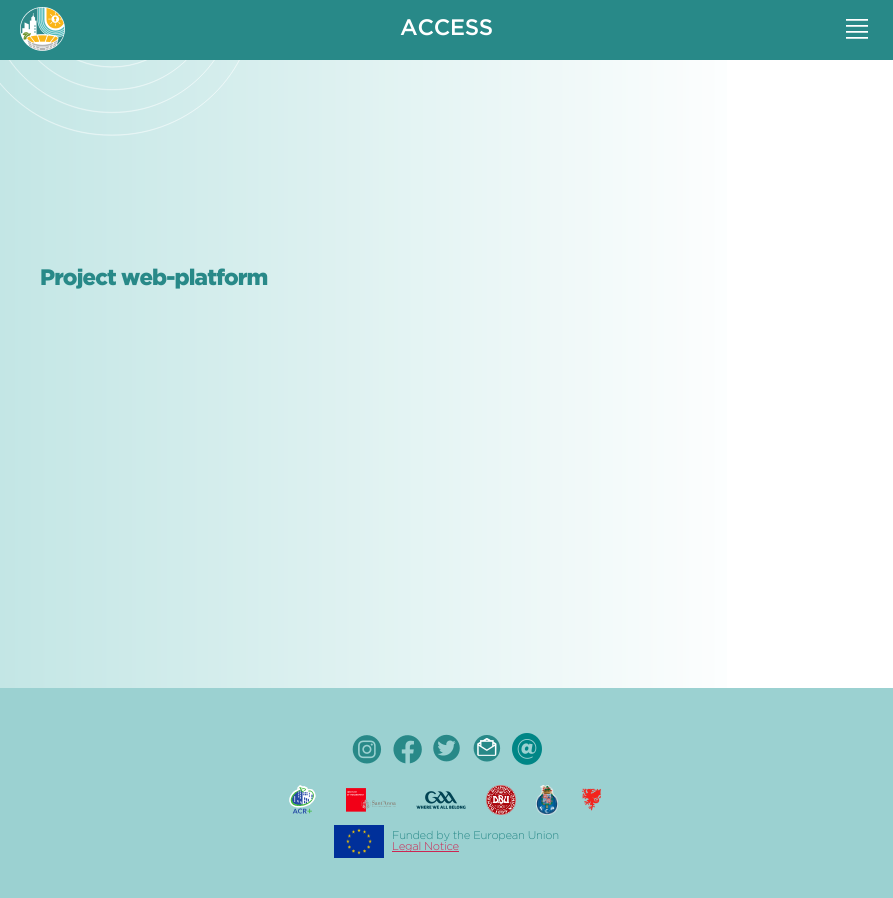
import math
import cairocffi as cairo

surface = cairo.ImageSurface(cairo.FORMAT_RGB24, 893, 898)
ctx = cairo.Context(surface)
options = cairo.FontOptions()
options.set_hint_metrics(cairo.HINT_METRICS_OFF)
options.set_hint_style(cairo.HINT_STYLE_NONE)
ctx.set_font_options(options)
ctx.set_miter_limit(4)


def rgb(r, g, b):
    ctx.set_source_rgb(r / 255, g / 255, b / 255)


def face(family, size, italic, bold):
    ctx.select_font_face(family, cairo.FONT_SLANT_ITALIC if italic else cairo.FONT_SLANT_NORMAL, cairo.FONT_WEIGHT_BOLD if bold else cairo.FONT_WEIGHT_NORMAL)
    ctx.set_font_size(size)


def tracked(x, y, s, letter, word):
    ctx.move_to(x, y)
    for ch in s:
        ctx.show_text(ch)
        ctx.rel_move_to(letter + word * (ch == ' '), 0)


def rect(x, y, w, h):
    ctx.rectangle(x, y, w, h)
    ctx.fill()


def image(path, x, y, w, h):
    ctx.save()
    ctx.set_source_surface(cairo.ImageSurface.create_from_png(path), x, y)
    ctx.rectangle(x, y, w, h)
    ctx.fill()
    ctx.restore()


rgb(255, 255, 255)
ctx.paint()
gradient = cairo.LinearGradient(0, 449, 893, 449)
gradient.add_color_stop_rgba(0, 0.765, 0.902, 0.898, 1)
gradient.add_color_stop_rgba(0.85, 1, 1, 1, 1)
ctx.set_source(gradient)
rect(0, 60, 727, 628)
rgb(40, 137, 136)
rect(0, 0, 893, 60)
rgb(201, 226, 225)
rect(846, 20, 22, 1)
rgb(255, 255, 255)
rect(846, 19, 22, 1)
rgb(201, 226, 225)
rect(846, 26, 22, 1)
rgb(255, 255, 255)
rect(846, 25, 22, 1)
rgb(201, 226, 225)
rect(846, 32, 22, 1)
rgb(255, 255, 255)
rect(846, 31, 22, 1)
rgb(201, 226, 225)
rect(846, 38, 22, 1)
rgb(255, 255, 255)
rect(846, 37, 22, 1)
image('image0.png', 20, 7, 45, 44)
face('Gotham Medium', 22.4, 0, 0)
tracked(400, 35, 'ACCESS', -0.25, 0)
image('image1.png', 0, 60, 240, 76)
face('Gotham Black', 22.4, 0, 0)
rgb(40, 137, 136)
tracked(40, 285, 'Project web-platform', -0.9, 0)
rgb(155, 209, 209)
rect(0, 688, 893, 210)
image('image2.png', 352, 735, 30, 29)
image('image3.png', 393, 735, 29, 29)
image('image4.png', 433, 734, 27, 28)
image('image5.png', 473, 735, 28, 27)
image('image6.png', 512, 733, 30, 32)
image('image7.png', 289, 785, 27, 29)
image('image8.png', 346, 788, 50, 24)
image('image9.png', 416, 791, 50, 18)
image('image10.png', 486, 785, 30, 30)
image('image11.png', 536, 785, 22, 30)
image('image12.png', 582, 788, 19, 23)
image('image13.png', 334, 825, 50, 33)
face('Gotham Light', 11.25, 0, 0)
rgb(40, 137, 136)
tracked(392, 839, 'Funded by the European Union', -0.25, 0)
rgb(205, 38, 83)
rect(392, 851, 67, 1)
tracked(392, 850, 'Legal Notice', -0.25, 0)
surface.write_to_png('render.png')
